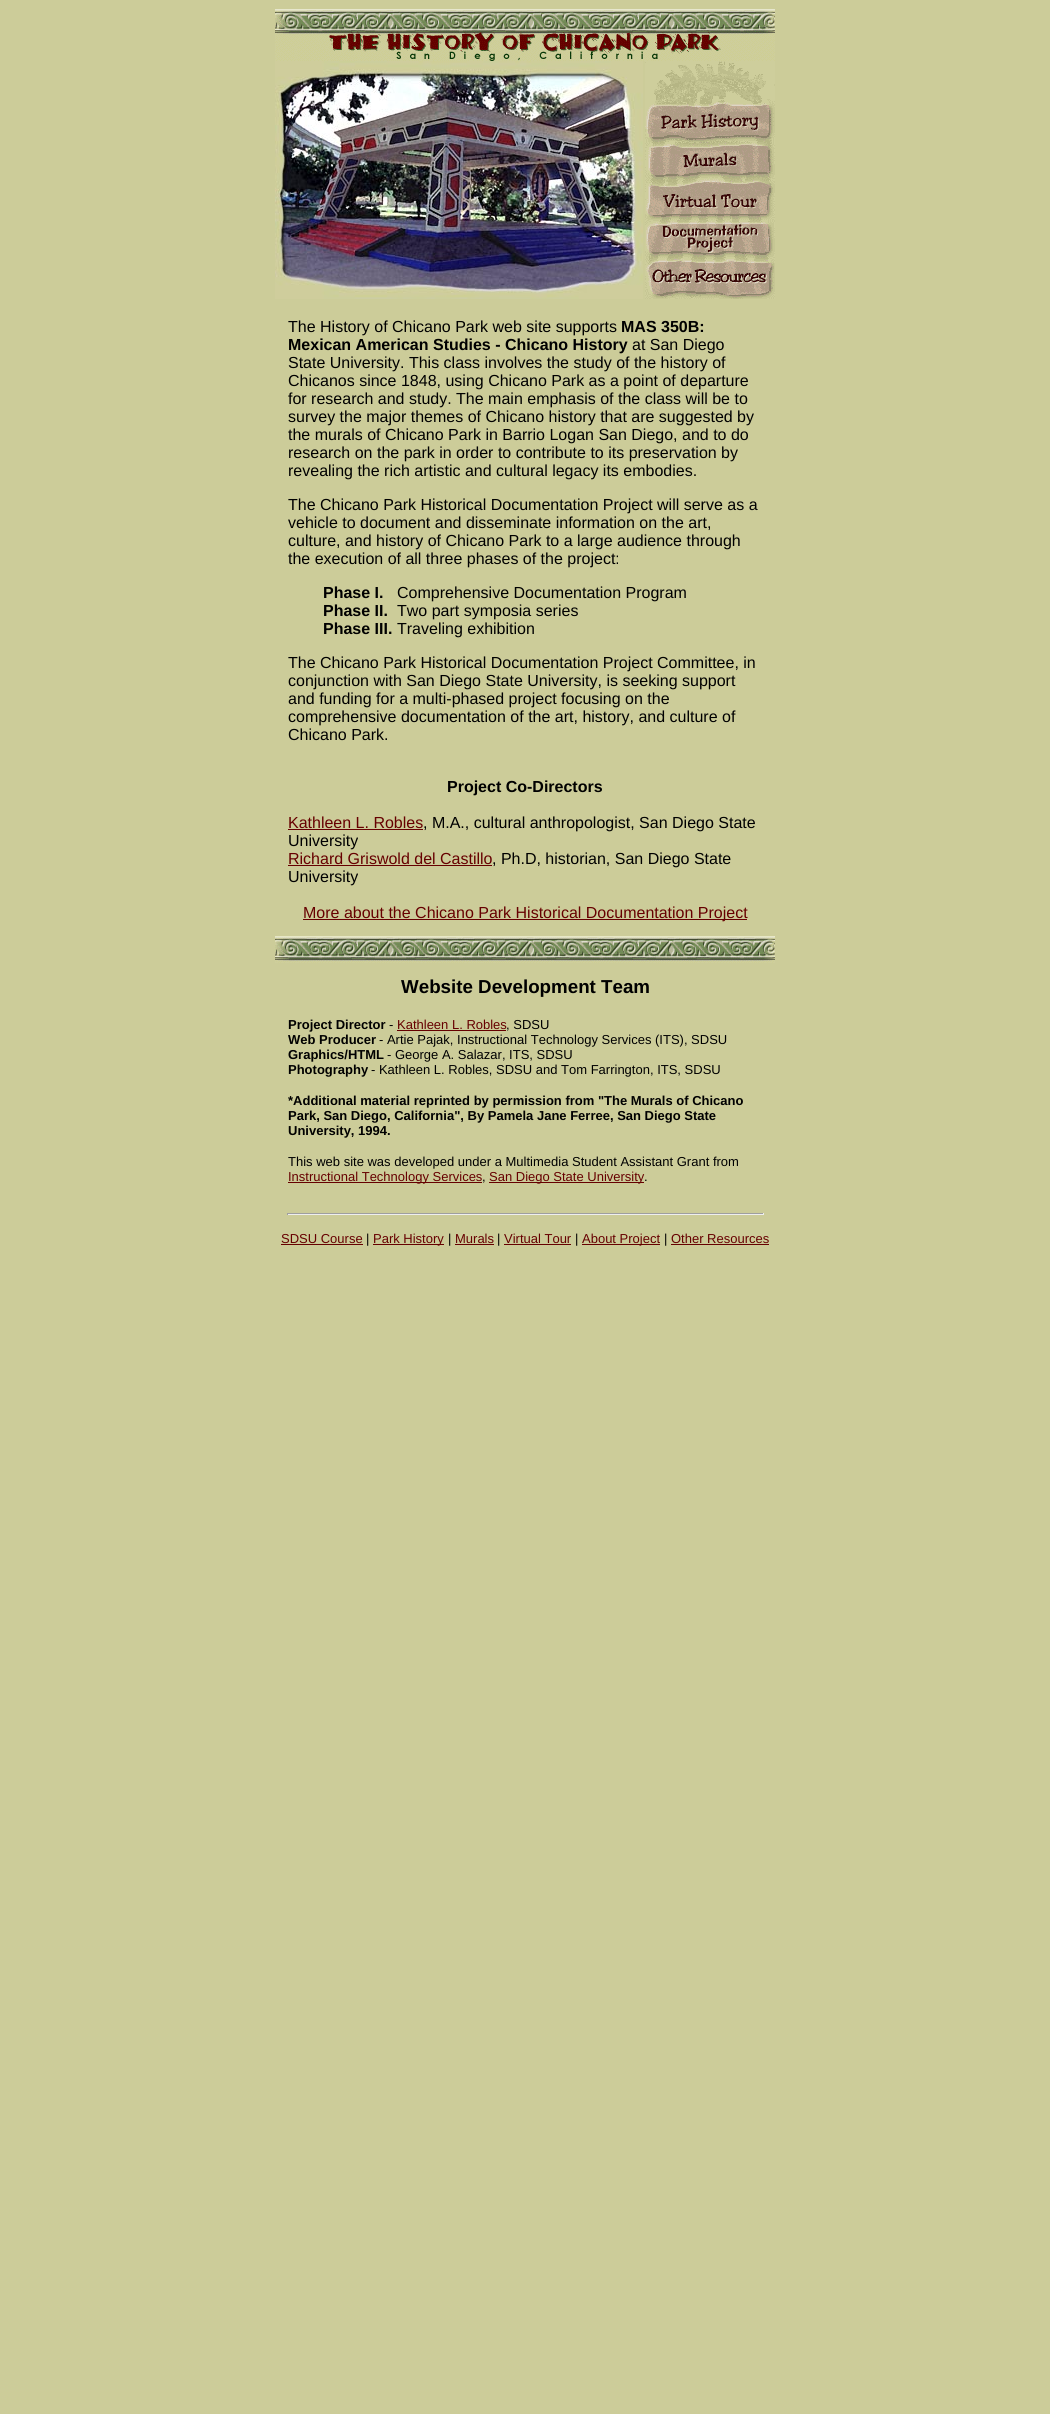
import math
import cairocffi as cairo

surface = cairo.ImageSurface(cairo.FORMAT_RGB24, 1050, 2414)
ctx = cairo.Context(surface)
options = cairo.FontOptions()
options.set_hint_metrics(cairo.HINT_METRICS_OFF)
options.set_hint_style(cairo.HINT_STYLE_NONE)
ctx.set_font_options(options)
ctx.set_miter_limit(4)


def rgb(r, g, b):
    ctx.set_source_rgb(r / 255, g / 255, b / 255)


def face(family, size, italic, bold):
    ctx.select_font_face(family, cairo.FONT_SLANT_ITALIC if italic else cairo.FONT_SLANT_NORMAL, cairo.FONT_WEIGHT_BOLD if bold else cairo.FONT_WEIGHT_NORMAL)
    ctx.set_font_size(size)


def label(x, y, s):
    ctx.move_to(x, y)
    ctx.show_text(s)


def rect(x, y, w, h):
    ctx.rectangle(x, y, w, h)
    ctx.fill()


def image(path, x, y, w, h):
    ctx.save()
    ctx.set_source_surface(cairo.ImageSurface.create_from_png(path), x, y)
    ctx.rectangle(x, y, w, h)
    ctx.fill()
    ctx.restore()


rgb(204, 204, 153)
ctx.paint()
image('image0.png', 275, 9, 500, 52)
image('image1.png', 275, 61, 368, 238)
image('image2.png', 645, 61, 130, 238)
face('Liberation Sans', 16, 0, 0)
rgb(0, 0, 0)
label(288, 332, 'The History of Chicano Park web site supports')
face('Liberation Sans', 16, 0, 1)
label(621, 332, 'MAS 350B:')
label(288, 350, 'Mexican American Studies - Chicano History')
face('Liberation Sans', 16, 0, 0)
label(632, 350, 'at San Diego')
label(288, 368, 'State University. This class involves the study of the history of')
label(288, 386, 'Chicanos since 1848, using Chicano Park as a point of departure')
label(288, 404, 'for research and study. The main emphasis of the class will be to')
label(288, 422, 'survey the major themes of Chicano history that are suggested by')
label(288, 440, 'the murals of Chicano Park in Barrio Logan San Diego, and to do')
label(288, 458, 'research on the park in order to contribute to its preservation by')
label(288, 476, 'revealing the rich artistic and cultural legacy its embodies.')
label(288, 510, 'The Chicano Park Historical Documentation Project will serve as a')
label(288, 528, 'vehicle to document and disseminate information on the art,')
label(288, 546, 'culture, and history of Chicano Park to a large audience through')
label(288, 564, 'the execution of all three phases of the project:')
face('Liberation Sans', 16, 0, 1)
label(323, 598, 'Phase I.')
face('Liberation Sans', 16, 0, 0)
label(397, 598, 'Comprehensive Documentation Program')
face('Liberation Sans', 16, 0, 1)
label(323, 616, 'Phase II.')
face('Liberation Sans', 16, 0, 0)
label(397, 616, 'Two part symposia series')
face('Liberation Sans', 16, 0, 1)
label(323, 634, 'Phase III.')
face('Liberation Sans', 16, 0, 0)
label(397, 634, 'Traveling exhibition')
label(288, 668, 'The Chicano Park Historical Documentation Project Committee, in')
label(288, 686, 'conjunction with San Diego State University, is seeking support')
label(288, 704, 'and funding for a multi-phased project focusing on the')
label(288, 722, 'comprehensive documentation of the art, history, and culture of')
label(288, 740, 'Chicano Park.')
face('Liberation Sans', 16, 0, 1)
label(447, 792, 'Project Co-Directors')
face('Liberation Sans', 16, 0, 0)
rgb(102, 0, 0)
label(288, 828, 'Kathleen L. Robles')
rgb(0, 0, 0)
label(423, 828, ', M.A., cultural anthropologist, San Diego State')
rgb(102, 0, 0)
rect(288, 829, 135, 1)
rgb(0, 0, 0)
label(288, 846, 'University')
rgb(102, 0, 0)
label(288, 864, 'Richard Griswold del Castillo')
rgb(0, 0, 0)
label(492, 864, ', Ph.D, historian, San Diego State')
rgb(102, 0, 0)
rect(288, 865, 204, 1)
rgb(0, 0, 0)
label(288, 882, 'University')
rgb(102, 0, 0)
rect(303, 919, 444, 1)
label(303, 918, 'More about the Chicano Park Historical Documentation Project')
image('image3.png', 275, 936, 500, 27)
face('Liberation Sans', 18.75, 0, 1)
rgb(0, 0, 0)
label(401, 993, 'Website Development Team')
face('Liberation Sans', 13, 0, 1)
label(288, 1029, 'Project Director')
face('Liberation Sans', 13, 0, 0)
label(389, 1029, '-')
rgb(102, 0, 0)
label(397, 1029, 'Kathleen L. Robles')
rect(397, 1030, 109, 1)
rgb(0, 0, 0)
label(506, 1029, ', SDSU')
face('Liberation Sans', 13, 0, 1)
label(288, 1044, 'Web Producer')
face('Liberation Sans', 13, 0, 0)
label(379, 1044, '- Artie Pajak, Instructional Technology Services (ITS), SDSU')
face('Liberation Sans', 13, 0, 1)
label(288, 1059, 'Graphics/HTML')
face('Liberation Sans', 13, 0, 0)
label(387, 1059, '- George A. Salazar, ITS, SDSU')
face('Liberation Sans', 13, 0, 1)
label(288, 1074, 'Photography')
face('Liberation Sans', 13, 0, 0)
label(371, 1074, '- Kathleen L. Robles, SDSU and Tom Farrington, ITS, SDSU')
face('Liberation Sans', 13, 0, 1)
label(288, 1105, '*Additional material reprinted by permission from "The Murals of Chicano')
label(288, 1120, 'Park, San Diego, California", By Pamela Jane Ferree, San Diego State')
label(288, 1135, 'University, 1994.')
face('Liberation Sans', 13, 0, 0)
label(288, 1166, 'This web site was developed under a Multimedia Student Assistant Grant from')
rgb(102, 0, 0)
rect(288, 1182, 194, 1)
label(288, 1181, 'Instructional Technology Services')
rgb(0, 0, 0)
label(482, 1181, ',')
rgb(102, 0, 0)
rect(489, 1182, 155, 1)
label(489, 1181, 'San Diego State University')
rgb(0, 0, 0)
label(644, 1181, '.')
rgb(159, 159, 159)
rect(287, 1213, 477, 1)
rgb(238, 238, 238)
rect(763, 1213, 1, 2)
rect(287, 1214, 477, 1)
rgb(159, 159, 159)
rect(287, 1213, 1, 2)
rgb(102, 0, 0)
label(281, 1243, 'SDSU Course')
rect(281, 1244, 82, 1)
rgb(0, 0, 0)
label(366, 1243, '|')
rgb(102, 0, 0)
rect(373, 1244, 71, 1)
label(373, 1243, 'Park History')
rgb(0, 0, 0)
label(448, 1243, '|')
rgb(102, 0, 0)
label(455, 1243, 'Murals')
rect(455, 1244, 39, 1)
rgb(0, 0, 0)
label(497, 1243, '|')
rgb(102, 0, 0)
label(504, 1243, 'Virtual Tour')
rect(504, 1244, 67, 1)
rgb(0, 0, 0)
label(575, 1243, '|')
rgb(102, 0, 0)
rect(582, 1244, 78, 1)
label(582, 1243, 'About Project')
rgb(0, 0, 0)
label(664, 1243, '|')
rgb(102, 0, 0)
label(671, 1243, 'Other Resources')
rect(671, 1244, 98, 1)
surface.write_to_png('render.png')
